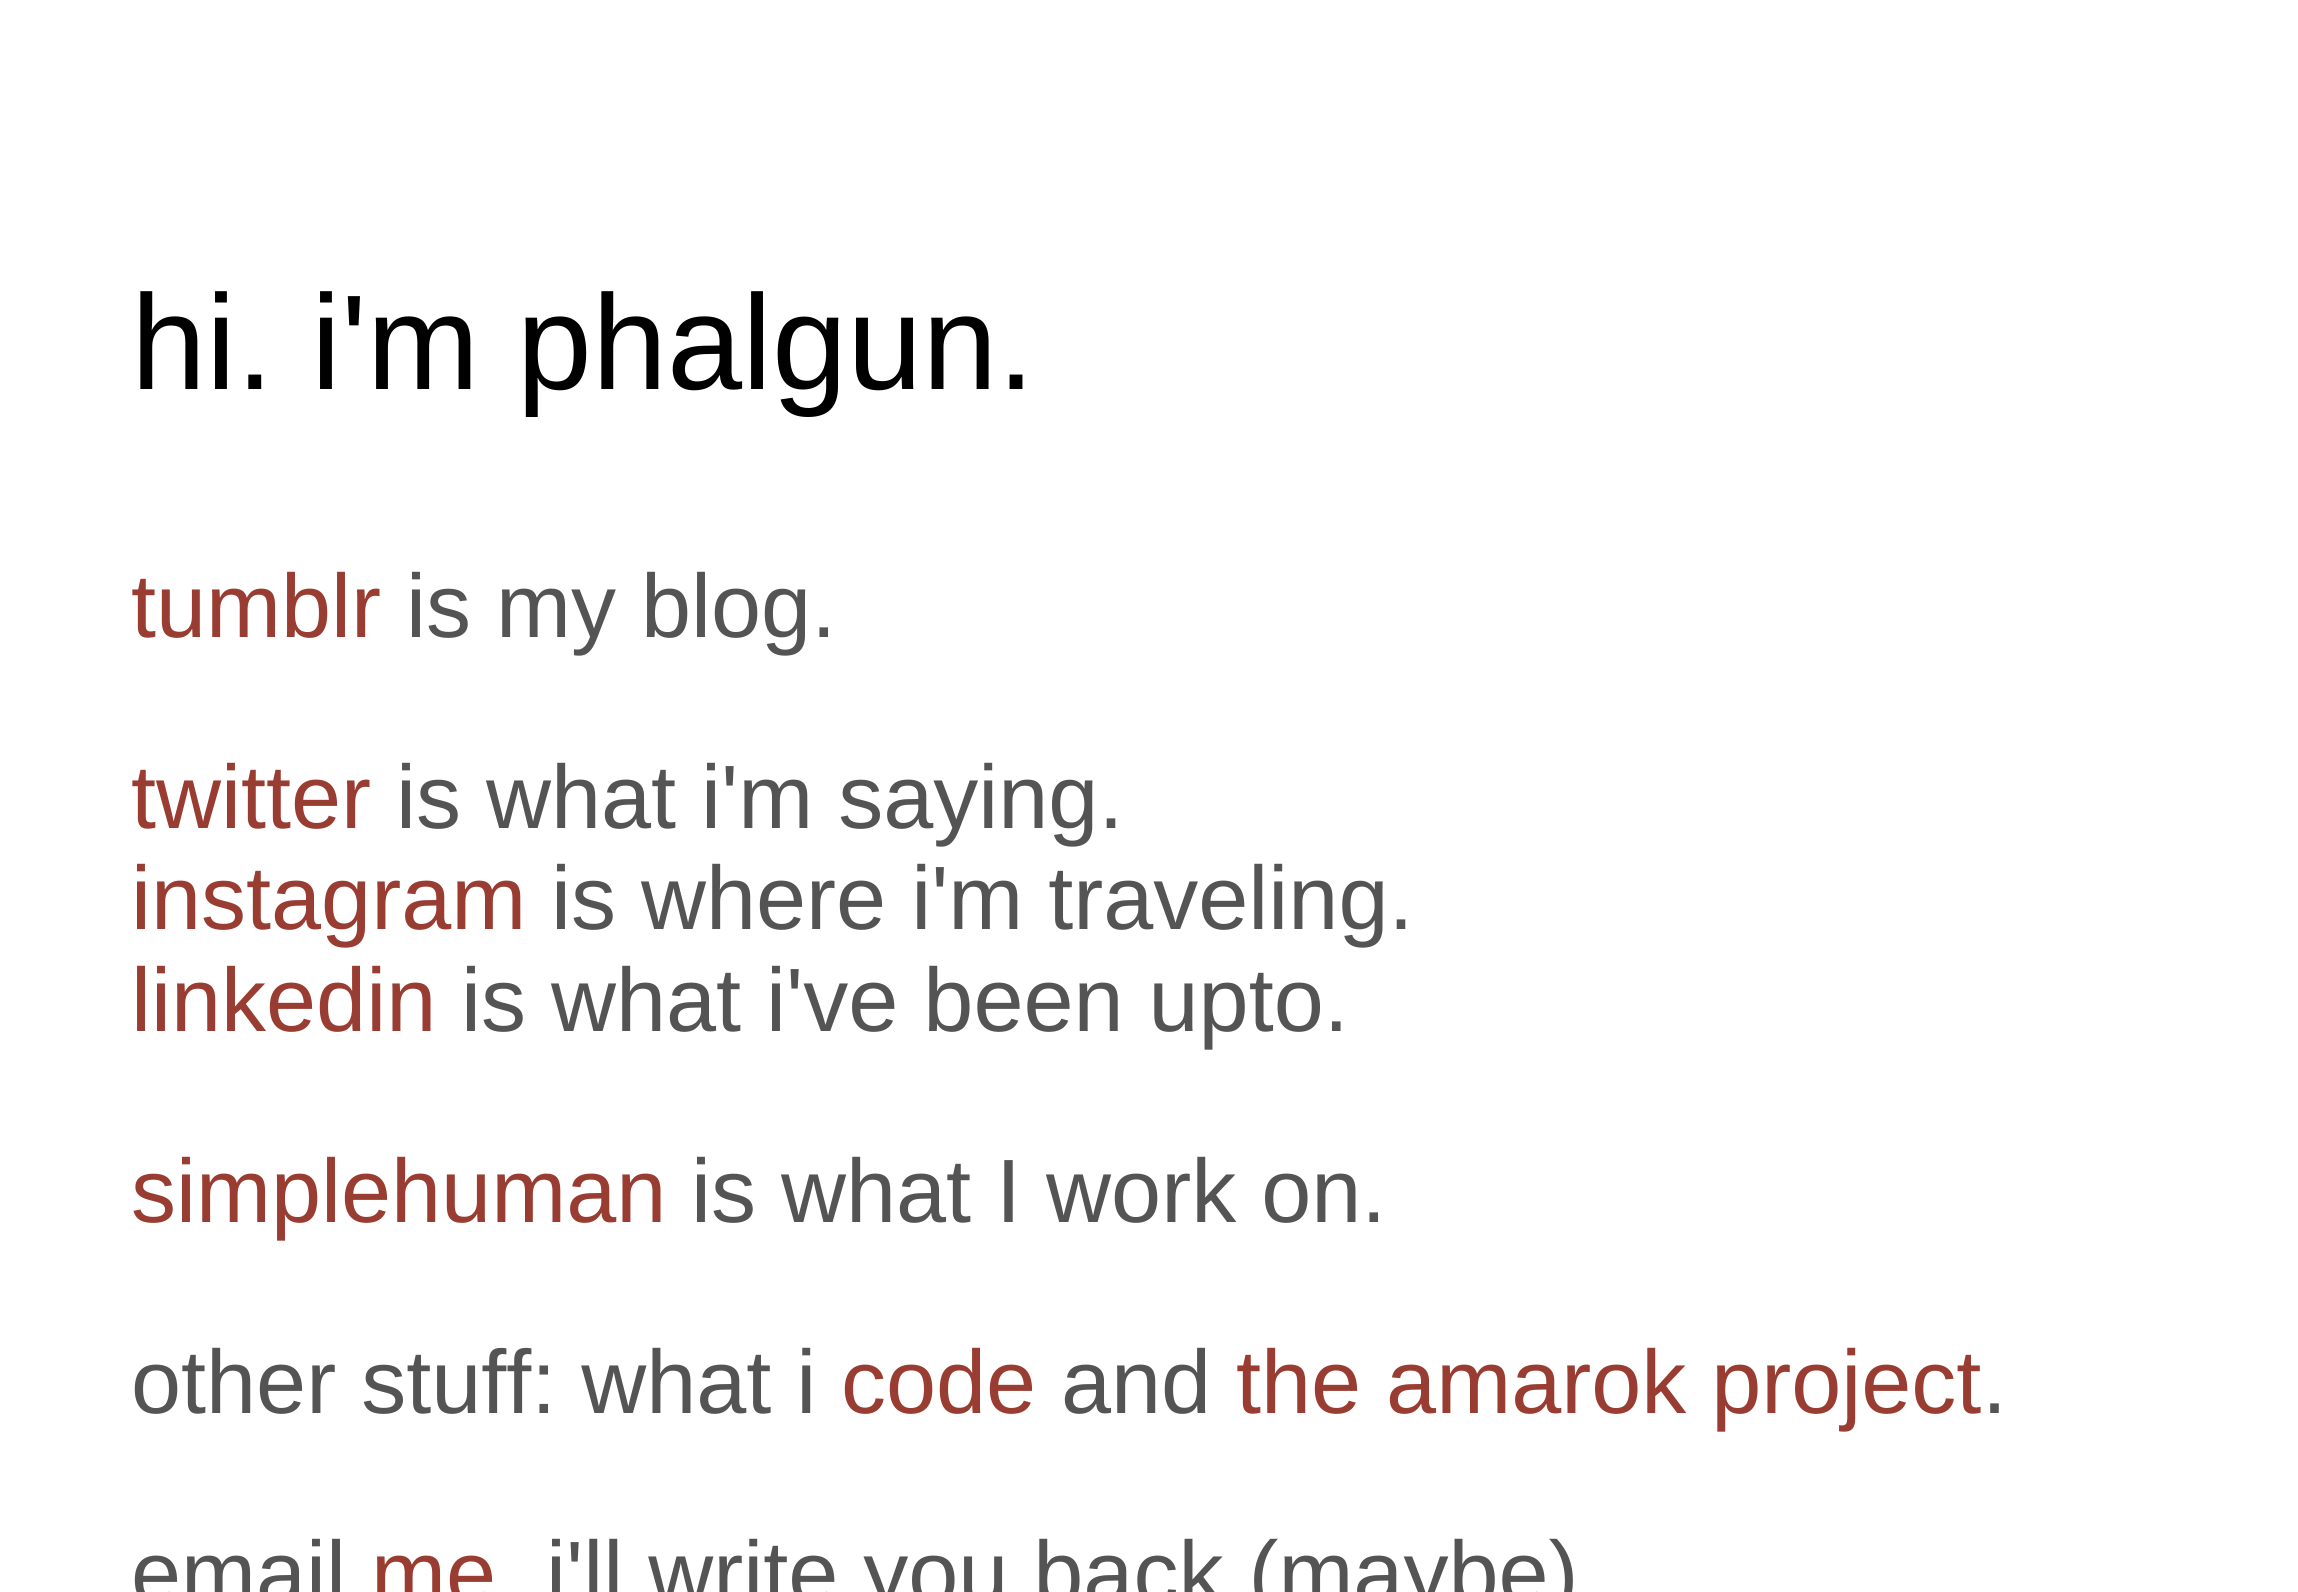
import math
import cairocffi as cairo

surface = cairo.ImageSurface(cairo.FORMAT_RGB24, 2298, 1592)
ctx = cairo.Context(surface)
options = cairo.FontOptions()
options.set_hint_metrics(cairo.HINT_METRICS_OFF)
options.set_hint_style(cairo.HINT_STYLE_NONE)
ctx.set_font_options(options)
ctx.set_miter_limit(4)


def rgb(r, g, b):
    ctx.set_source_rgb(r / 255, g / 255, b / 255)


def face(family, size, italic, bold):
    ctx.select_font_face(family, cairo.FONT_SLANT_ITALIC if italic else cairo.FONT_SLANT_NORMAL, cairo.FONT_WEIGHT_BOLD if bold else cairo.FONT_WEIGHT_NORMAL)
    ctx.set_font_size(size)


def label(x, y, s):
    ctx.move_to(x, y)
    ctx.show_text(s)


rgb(255, 255, 255)
ctx.paint()
face('Liberation Sans', 135, 0, 0)
rgb(0, 0, 0)
label(131, 389, 'hi. i\'m phalgun.')
face('Liberation Sans', 90, 0, 0)
rgb(153, 60, 49)
label(131, 637, 'tumblr')
rgb(84, 84, 84)
label(406, 637, 'is my blog.')
rgb(153, 60, 49)
label(131, 828, 'twitter')
rgb(84, 84, 84)
label(396, 828, 'is what i\'m saying.')
rgb(153, 60, 49)
label(131, 929, 'instagram')
rgb(84, 84, 84)
label(551, 929, 'is where i\'m traveling.')
rgb(153, 60, 49)
label(131, 1031, 'linkedin')
rgb(84, 84, 84)
label(461, 1031, 'is what i\'ve been upto.')
rgb(153, 60, 49)
label(131, 1222, 'simplehuman')
rgb(84, 84, 84)
label(691, 1222, 'is what I work on.')
label(131, 1413, 'other stuff: what i')
rgb(153, 60, 49)
label(841, 1413, 'code')
rgb(84, 84, 84)
label(1061, 1413, 'and')
rgb(153, 60, 49)
label(1236, 1413, 'the amarok project')
rgb(84, 84, 84)
label(1982, 1413, '.')
label(131, 1604, 'email')
rgb(153, 60, 49)
label(371, 1604, 'me')
rgb(84, 84, 84)
label(546, 1604, 'i\'ll write you back (maybe)')
surface.write_to_png('render.png')
